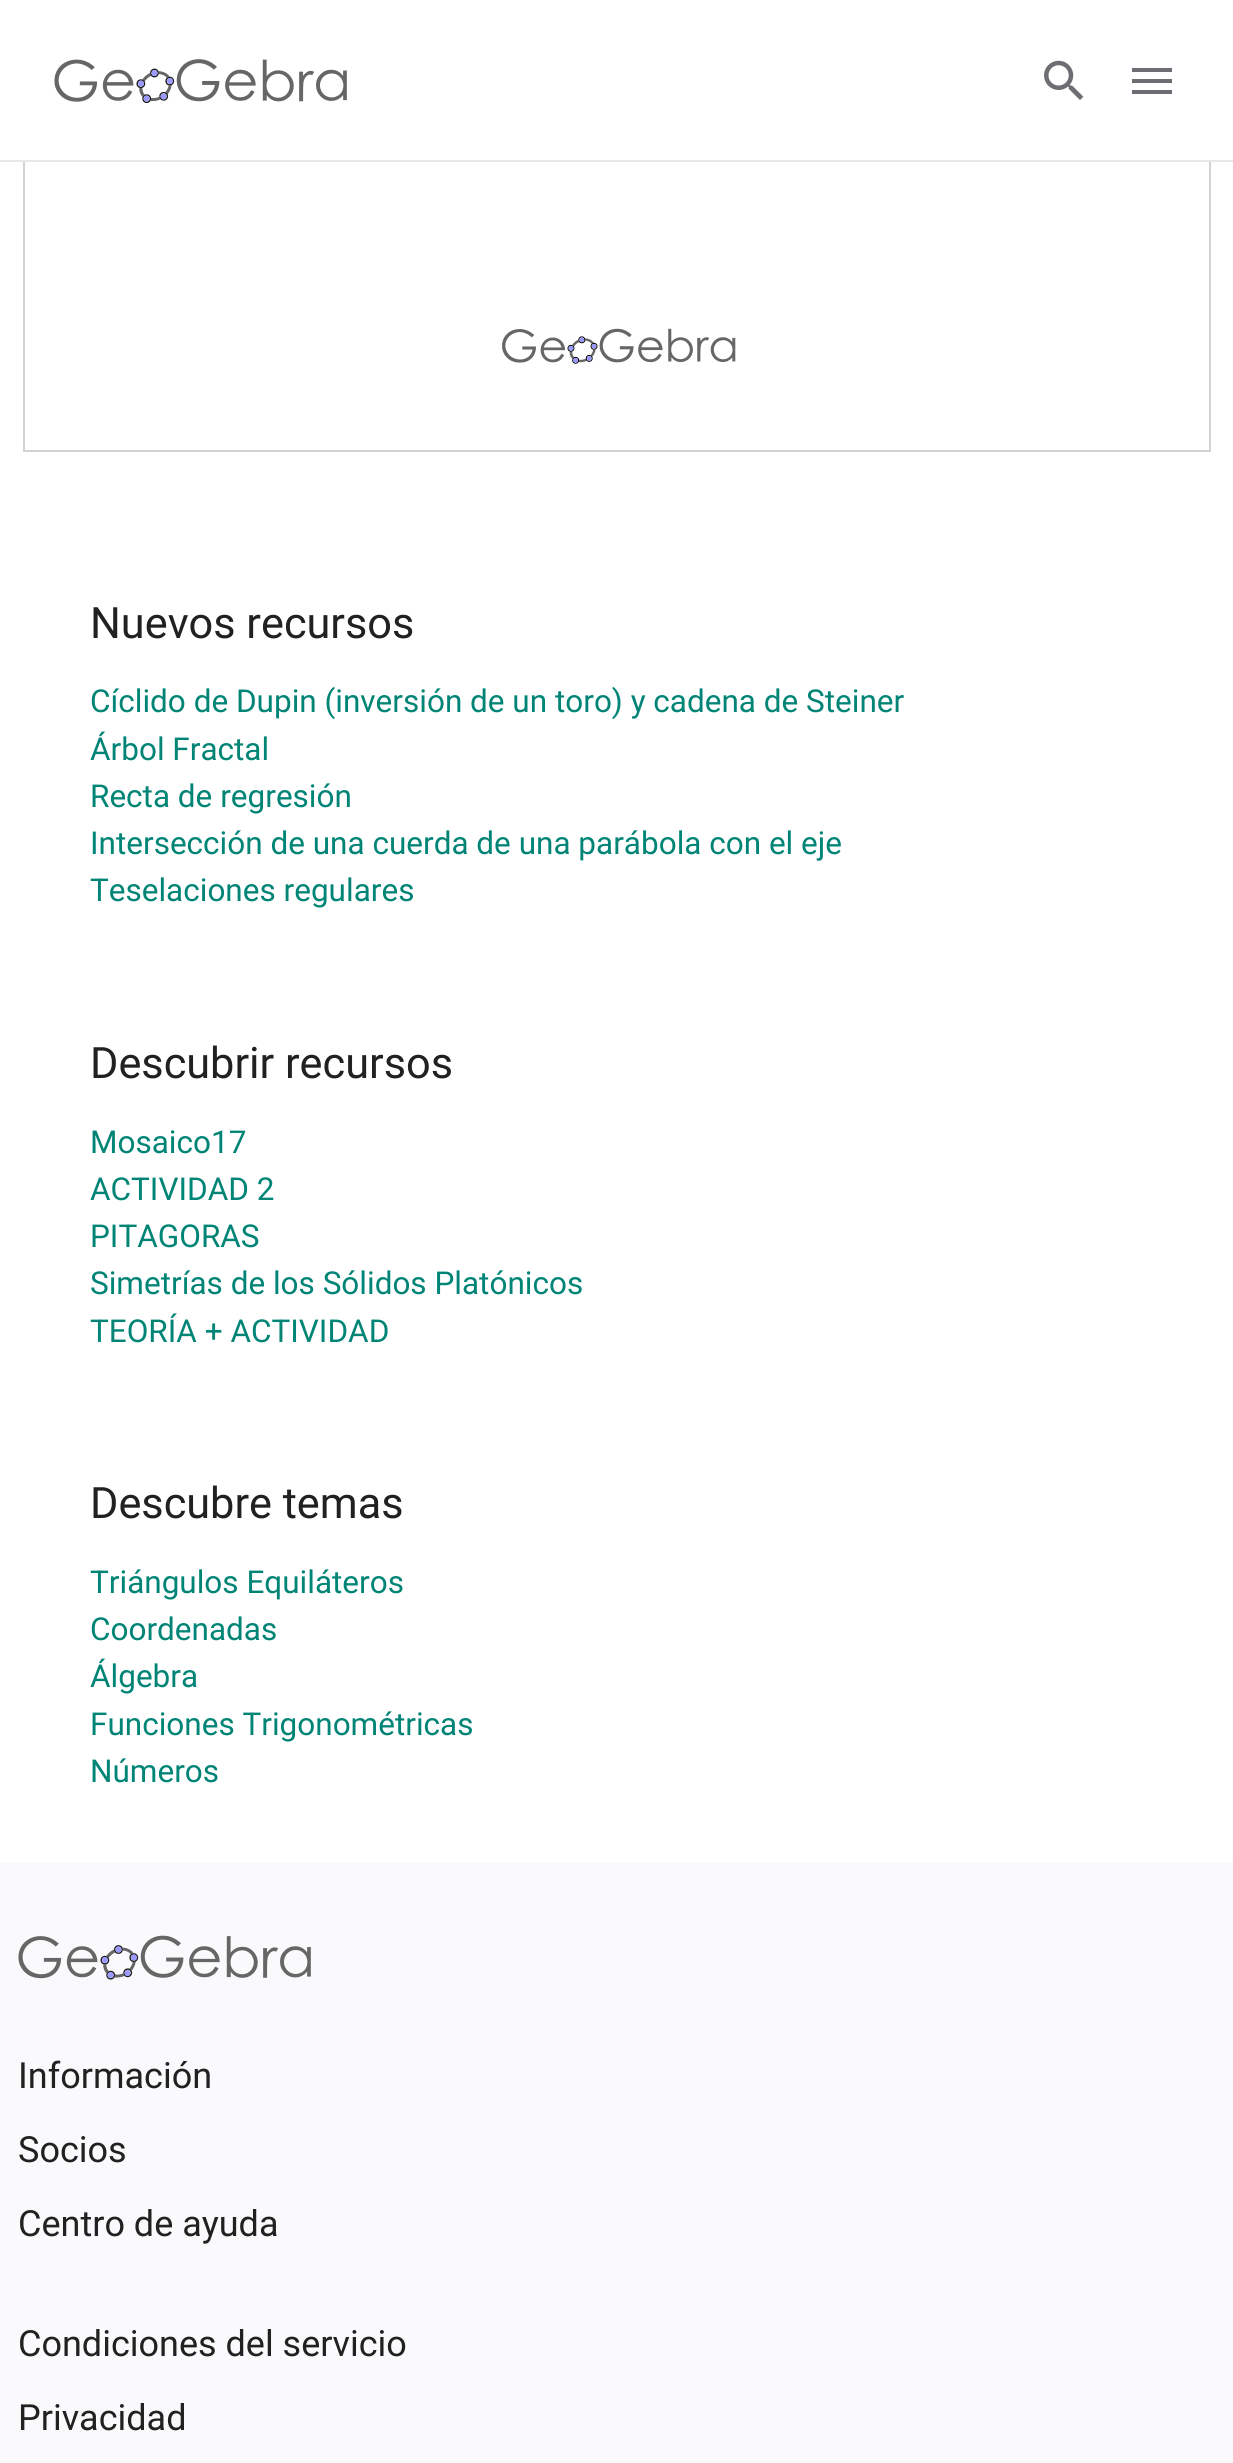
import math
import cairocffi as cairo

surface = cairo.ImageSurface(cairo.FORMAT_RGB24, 1233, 2463)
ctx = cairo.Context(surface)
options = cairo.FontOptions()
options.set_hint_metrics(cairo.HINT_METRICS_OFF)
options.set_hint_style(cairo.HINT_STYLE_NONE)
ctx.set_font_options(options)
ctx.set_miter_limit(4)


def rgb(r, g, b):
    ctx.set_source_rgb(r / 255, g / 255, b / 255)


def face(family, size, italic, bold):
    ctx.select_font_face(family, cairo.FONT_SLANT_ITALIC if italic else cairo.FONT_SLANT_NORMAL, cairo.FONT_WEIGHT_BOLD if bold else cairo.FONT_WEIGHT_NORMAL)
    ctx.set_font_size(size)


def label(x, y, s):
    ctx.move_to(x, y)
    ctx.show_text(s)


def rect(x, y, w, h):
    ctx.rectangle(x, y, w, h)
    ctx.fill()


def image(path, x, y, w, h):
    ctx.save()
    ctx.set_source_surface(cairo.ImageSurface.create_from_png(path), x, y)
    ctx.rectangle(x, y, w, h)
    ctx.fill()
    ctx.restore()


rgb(255, 255, 255)
ctx.paint()
image('image2.png', 502, 328, 234, 36)
ctx.rectangle(24, -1, 1186, 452)
rgb(211, 211, 211)
ctx.stroke()
rgb(255, 255, 255)
rect(23, 0, 1188, 160)
rgb(230, 230, 235)
rect(0, 160, 1233, 2)
image('image0.png', 54, 59, 293, 45)
image('image1.png', 1044, 60, 40, 40)
rgb(110, 109, 115)
ctx.new_path()
ctx.move_to(1132, 68)
ctx.line_to(1172, 68)
ctx.line_to(1172, 72)
ctx.line_to(1132, 72)
ctx.line_to(1132, 68)
ctx.move_to(1132, 79)
ctx.line_to(1172, 79)
ctx.line_to(1172, 83)
ctx.line_to(1132, 83)
ctx.line_to(1132, 79)
ctx.move_to(1132, 90)
ctx.line_to(1172, 90)
ctx.line_to(1172, 94)
ctx.line_to(1132, 94)
ctx.close_path()
ctx.fill()
face('Roboto', 43.25, 0, 0)
rgb(33, 33, 33)
label(90, 638, 'Nuevos recursos')
face('Roboto', 31.5, 0, 0)
rgb(0, 132, 117)
label(90, 712, 'Cíclido de Dupin (inversión de un toro) y cadena de Steiner')
label(90, 760, 'Árbol Fractal')
label(90, 807, 'Recta de regresión')
label(90, 854, 'Intersección de una cuerda de una parábola con el eje')
label(90, 901, 'Teselaciones regulares')
face('Roboto', 43.25, 0, 0)
rgb(33, 33, 33)
label(90, 1078, 'Descubrir recursos')
face('Roboto', 31.5, 0, 0)
rgb(0, 132, 117)
label(90, 1153, 'Mosaico17')
label(90, 1200, 'ACTIVIDAD 2')
label(90, 1247, 'PITAGORAS')
label(90, 1294, 'Simetrías de los Sólidos Platónicos')
label(90, 1342, 'TEORÍA + ACTIVIDAD')
face('Roboto', 43.25, 0, 0)
rgb(33, 33, 33)
label(90, 1518, 'Descubre temas')
face('Roboto', 31.5, 0, 0)
rgb(0, 132, 117)
label(90, 1593, 'Triángulos Equiláteros')
label(90, 1640, 'Coordenadas')
label(90, 1687, 'Álgebra')
label(90, 1735, 'Funciones Trigonométricas')
label(90, 1782, 'Números')
rgb(250, 250, 252)
rect(0, 1863, 1233, 600)
image('image3.png', 18, 1935, 293, 45)
face('Roboto', 36, 0, 0)
rgb(33, 33, 33)
label(18, 2088, 'Información')
label(18, 2162, 'Socios')
label(18, 2236, 'Centro de ayuda')
label(18, 2356, 'Condiciones del servicio')
label(18, 2430, 'Privacidad')
surface.write_to_png('render.png')
